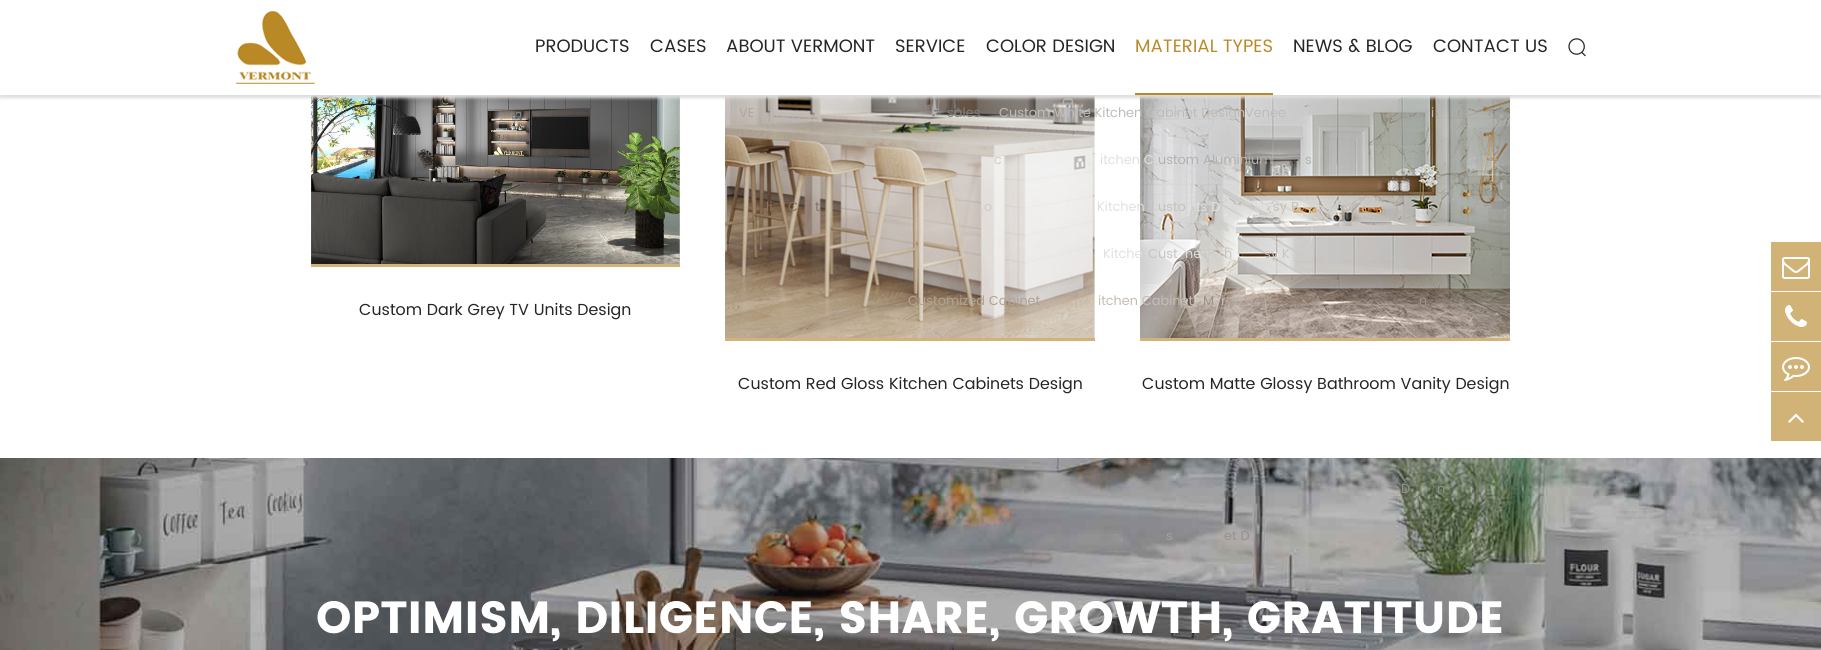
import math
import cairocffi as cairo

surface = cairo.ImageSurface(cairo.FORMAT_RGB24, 1821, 650)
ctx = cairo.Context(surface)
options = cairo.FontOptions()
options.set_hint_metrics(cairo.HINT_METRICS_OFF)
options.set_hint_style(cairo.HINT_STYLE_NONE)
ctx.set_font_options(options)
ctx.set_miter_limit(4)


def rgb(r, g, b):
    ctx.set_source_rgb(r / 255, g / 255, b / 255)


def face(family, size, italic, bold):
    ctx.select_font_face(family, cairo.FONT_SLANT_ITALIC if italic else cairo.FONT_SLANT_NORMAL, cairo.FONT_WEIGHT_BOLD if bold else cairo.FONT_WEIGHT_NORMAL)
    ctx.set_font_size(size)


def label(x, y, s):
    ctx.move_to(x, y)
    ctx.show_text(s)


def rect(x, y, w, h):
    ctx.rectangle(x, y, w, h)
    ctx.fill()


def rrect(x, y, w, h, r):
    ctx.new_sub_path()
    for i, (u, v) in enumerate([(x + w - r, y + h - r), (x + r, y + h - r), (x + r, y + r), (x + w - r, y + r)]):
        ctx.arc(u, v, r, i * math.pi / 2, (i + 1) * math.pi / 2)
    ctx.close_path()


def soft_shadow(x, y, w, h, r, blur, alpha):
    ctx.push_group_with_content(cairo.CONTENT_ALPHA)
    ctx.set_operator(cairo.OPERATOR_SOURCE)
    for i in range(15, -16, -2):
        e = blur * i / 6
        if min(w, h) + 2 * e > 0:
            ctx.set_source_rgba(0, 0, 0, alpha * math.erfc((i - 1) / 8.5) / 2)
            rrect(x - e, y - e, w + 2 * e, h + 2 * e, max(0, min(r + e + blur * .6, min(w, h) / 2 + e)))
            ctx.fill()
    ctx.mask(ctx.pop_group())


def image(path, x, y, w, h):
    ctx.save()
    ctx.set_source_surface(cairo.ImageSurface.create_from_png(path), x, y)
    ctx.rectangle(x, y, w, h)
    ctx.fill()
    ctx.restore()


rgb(255, 255, 255)
ctx.paint()
image('image6.png', 311, 95, 369, 169)
image('image7.png', 725, 95, 370, 243)
image('image8.png', 1140, 95, 370, 243)
rgb(220, 220, 220)
soft_shadow(0, 3, 1821, 95, 0, 1.5, 1)
rgb(255, 255, 255)
rect(0, 1, 1821, 94)
image('image0.png', 236, 11, 79, 73)
face('Poppins', 18, 0, 0)
rgb(37, 37, 37)
label(535, 52, 'PRODUCTS')
label(650, 52, 'CASES')
label(726, 52, 'ABOUT VERMONT')
face('Poppins', 13, 0, 0)
rgb(173, 167, 161)
label(739, 117, 'VE')
rgb(136, 116, 96)
label(766, 211, 'li')
label(788, 211, 'C')
label(815, 211, 't')
face('Poppins', 18, 0, 0)
rgb(37, 37, 37)
label(895, 52, 'SERVICE')
face('Poppins', 13, 0, 0)
rgb(132, 127, 120)
label(947, 117, 'sales')
rgb(211, 203, 193)
label(994, 164, 'c')
label(984, 211, 'o')
rgb(177, 162, 146)
label(908, 305, 'Customized Cabinet')
face('Poppins', 18, 0, 0)
rgb(37, 37, 37)
label(986, 52, 'COLOR DESIGN')
face('Poppins', 13, 0, 0)
rgb(190, 188, 185)
label(999, 117, 'Custom White Kitchen Cabinet Design')
rgb(224, 224, 223)
label(1100, 164, 'itchen C')
label(1216, 164, 'sig')
label(1097, 211, 'Kitchen')
label(1196, 211, 'ts D')
label(1103, 258, 'Kitche')
label(1185, 258, 'ne')
rgb(197, 188, 180)
label(1098, 305, 'itchen Cabinet')
label(1221, 305, 'i')
image('image9.png', 0, 458, 1821, 192)
rgb(146, 145, 147)
label(1224, 540, 'et D')
face('Poppins', 18, 0, 0)
rgb(37, 37, 37)
label(1293, 52, 'NEWS & BLOG')
image('image1.png', 1568, 38, 18, 19)
rgb(186, 137, 38)
rect(1135, 93, 138, 2)
label(1135, 52, 'MATERIAL TYPES')
face('Poppins', 13, 0, 0)
rgb(190, 188, 185)
label(1245, 117, 'Venee')
label(1431, 117, 'i')
rgb(178, 178, 174)
label(1158, 164, 'ustom Aluminium')
label(1305, 164, 's')
rgb(198, 194, 186)
label(1158, 211, 'usto')
label(1273, 211, 'sy B')
label(1427, 211, 'i')
rgb(200, 197, 193)
label(1148, 258, 'Cust')
label(1224, 258, 'h')
label(1264, 258, 'sy K')
rgb(158, 145, 135)
label(1203, 305, 'M')
label(1419, 305, 'n')
rgb(146, 145, 147)
label(1401, 493, 'D')
label(1437, 493, 'n')
rgb(161, 160, 158)
label(1166, 540, 's')
face('Poppins', 18, 0, 0)
rgb(37, 37, 37)
label(1433, 52, 'CONTACT US')
rgb(209, 179, 119)
rect(1771, 242, 50, 49)
image('image2.png', 1782, 257, 28, 22)
rect(1771, 292, 50, 49)
image('image3.png', 1785, 305, 22, 22)
rect(1771, 342, 50, 49)
image('image4.png', 1782, 357, 28, 24)
rect(1771, 392, 50, 49)
image('image5.png', 1788, 413, 16, 10)
rect(311, 264, 369, 3)
face('Poppins', 16, 0, 0)
rgb(37, 37, 37)
label(359, 315, 'Custom Dark Grey TV Units Design')
rgb(209, 179, 119)
rect(725, 338, 370, 3)
rgb(37, 37, 37)
label(738, 389, 'Custom Red Gloss Kitchen Cabinets Design')
rgb(209, 179, 119)
rect(1140, 338, 370, 3)
rgb(37, 37, 37)
label(1142, 389, 'Custom Matte Glossy Bathroom Vanity Design')
face('Poppins', 45, 0, 1)
rgb(255, 255, 255)
label(316, 633, 'OPTIMISM, DILIGENCE, SHARE, GROWTH, GRATITUDE')
surface.write_to_png('render.png')
